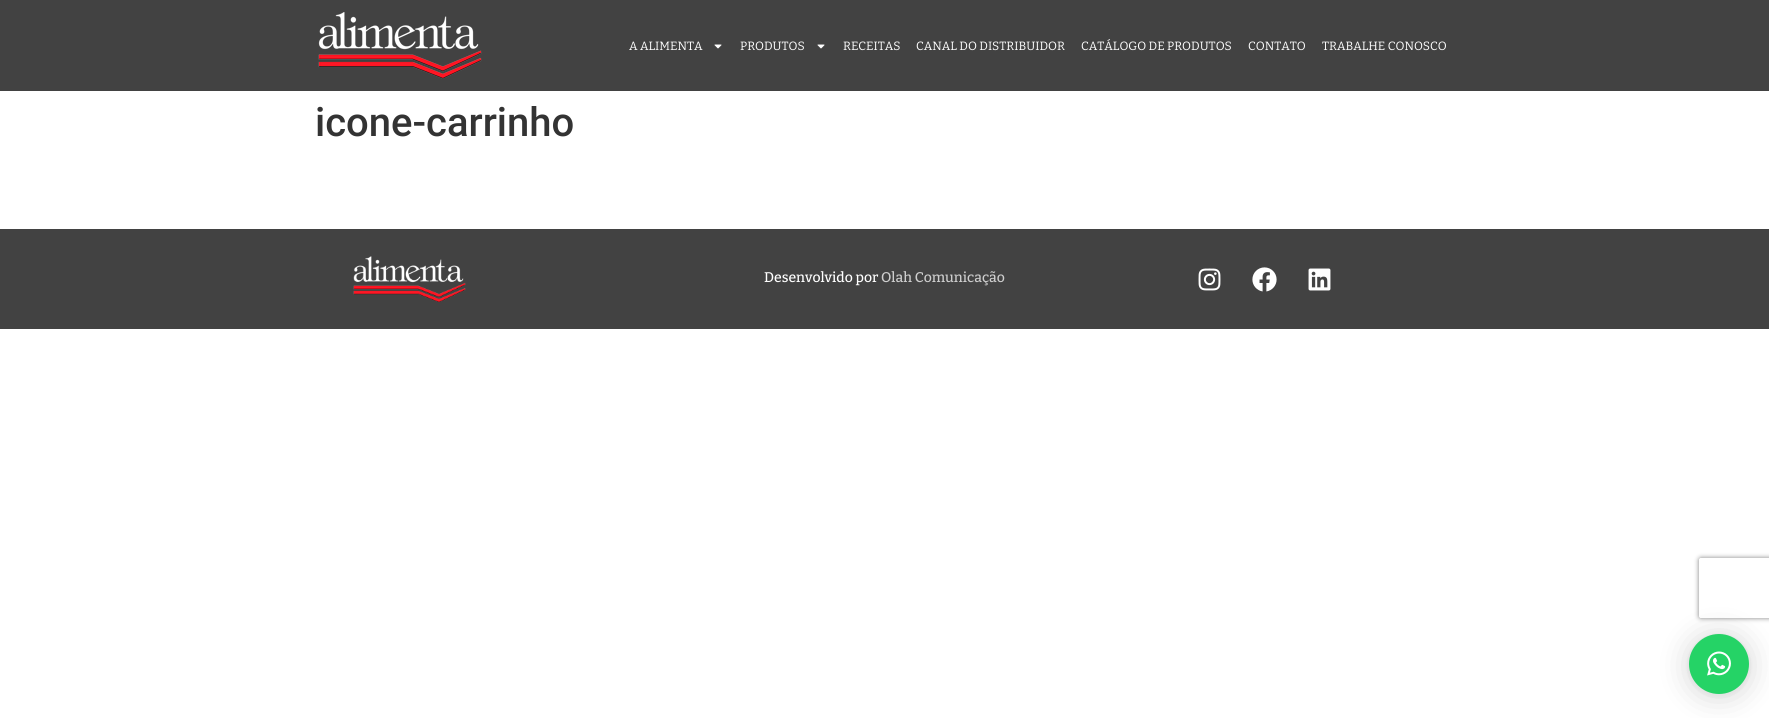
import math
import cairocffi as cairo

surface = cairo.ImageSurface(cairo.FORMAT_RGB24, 1769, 718)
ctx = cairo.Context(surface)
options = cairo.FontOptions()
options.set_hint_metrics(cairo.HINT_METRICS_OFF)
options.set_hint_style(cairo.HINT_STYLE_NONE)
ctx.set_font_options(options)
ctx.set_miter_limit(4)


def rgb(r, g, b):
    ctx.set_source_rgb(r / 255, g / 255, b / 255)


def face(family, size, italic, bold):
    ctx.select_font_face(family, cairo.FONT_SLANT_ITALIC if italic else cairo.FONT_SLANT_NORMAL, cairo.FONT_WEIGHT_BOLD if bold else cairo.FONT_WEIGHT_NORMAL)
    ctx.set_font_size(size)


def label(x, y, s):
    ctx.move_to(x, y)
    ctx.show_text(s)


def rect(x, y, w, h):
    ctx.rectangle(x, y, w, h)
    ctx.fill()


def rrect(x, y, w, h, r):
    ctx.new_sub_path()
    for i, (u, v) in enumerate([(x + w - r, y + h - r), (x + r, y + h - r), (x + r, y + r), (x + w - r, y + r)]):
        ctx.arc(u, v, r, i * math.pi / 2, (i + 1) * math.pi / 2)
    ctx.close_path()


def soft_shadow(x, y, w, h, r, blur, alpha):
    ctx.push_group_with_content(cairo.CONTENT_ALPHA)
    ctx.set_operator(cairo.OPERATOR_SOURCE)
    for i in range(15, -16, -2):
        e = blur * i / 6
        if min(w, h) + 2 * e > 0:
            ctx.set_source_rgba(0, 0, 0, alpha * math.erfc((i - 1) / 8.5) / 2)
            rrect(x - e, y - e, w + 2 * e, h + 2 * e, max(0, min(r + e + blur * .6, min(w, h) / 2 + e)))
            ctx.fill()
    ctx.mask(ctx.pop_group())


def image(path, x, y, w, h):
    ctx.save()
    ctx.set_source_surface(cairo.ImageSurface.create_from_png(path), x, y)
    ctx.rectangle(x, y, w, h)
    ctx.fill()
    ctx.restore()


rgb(255, 255, 255)
ctx.paint()
rgb(66, 66, 66)
rect(0, 0, 1769, 91)
image('image0.png', 318, 12, 164, 67)
face('Bitter', 12, 0, 0)
rgb(255, 255, 255)
label(629, 50, 'A ALIMENTA')
image('image1.png', 714, 44, 8, 5)
label(740, 50, 'PRODUTOS')
image('image1.png', 817, 44, 8, 5)
label(843, 50, 'RECEITAS')
label(916, 50, 'CANAL DO DISTRIBUIDOR')
label(1081, 50, 'CATÁLOGO DE PRODUTOS')
label(1248, 50, 'CONTATO')
label(1322, 50, 'TRABALHE CONOSCO')
face('Roboto Medium', 40, 0, 0)
rgb(51, 51, 51)
label(315, 136, 'icone-carrinho')
rgb(66, 66, 66)
rect(0, 229, 1769, 100)
image('image2.png', 353, 256, 113, 46)
face('Bitter Medium', 14, 0, 0)
rgb(255, 255, 255)
label(764, 282, 'Desenvolvido por')
rgb(206, 206, 206)
label(881, 282, 'Olah Comunicação')
image('image3.png', 1198, 268, 23, 23)
image('image4.png', 1252, 267, 25, 25)
image('image5.png', 1308, 268, 23, 23)
ctx.save()
ctx.set_fill_rule(cairo.FILL_RULE_EVEN_ODD)
ctx.new_path()
ctx.move_to(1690, 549)
ctx.line_to(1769, 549)
ctx.line_to(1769, 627)
ctx.line_to(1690, 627)
ctx.close_path()
ctx.move_to(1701, 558)
ctx.line_to(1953, 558)
ctx.curve_to(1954, 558, 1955, 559, 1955, 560)
ctx.line_to(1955, 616)
ctx.curve_to(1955, 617, 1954, 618, 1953, 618)
ctx.line_to(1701, 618)
ctx.curve_to(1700, 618, 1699, 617, 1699, 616)
ctx.line_to(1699, 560)
ctx.curve_to(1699, 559, 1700, 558, 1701, 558)
ctx.close_path()
ctx.clip()
rgb(128, 128, 128)
soft_shadow(1699, 558, 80, 60, 2, 2.5, 1)
ctx.restore()
rgb(0, 0, 0)
soft_shadow(1689, 636, 60, 60, 30, 16, 0.16)
soft_shadow(1689, 635, 60, 60, 30, 3, 0.06)
rgb(37, 211, 102)
ctx.arc(1719, 664, 30, 0, 2 * math.pi)
ctx.fill()
image('image6.png', 1707, 651, 24, 25)
surface.write_to_png('render.png')
